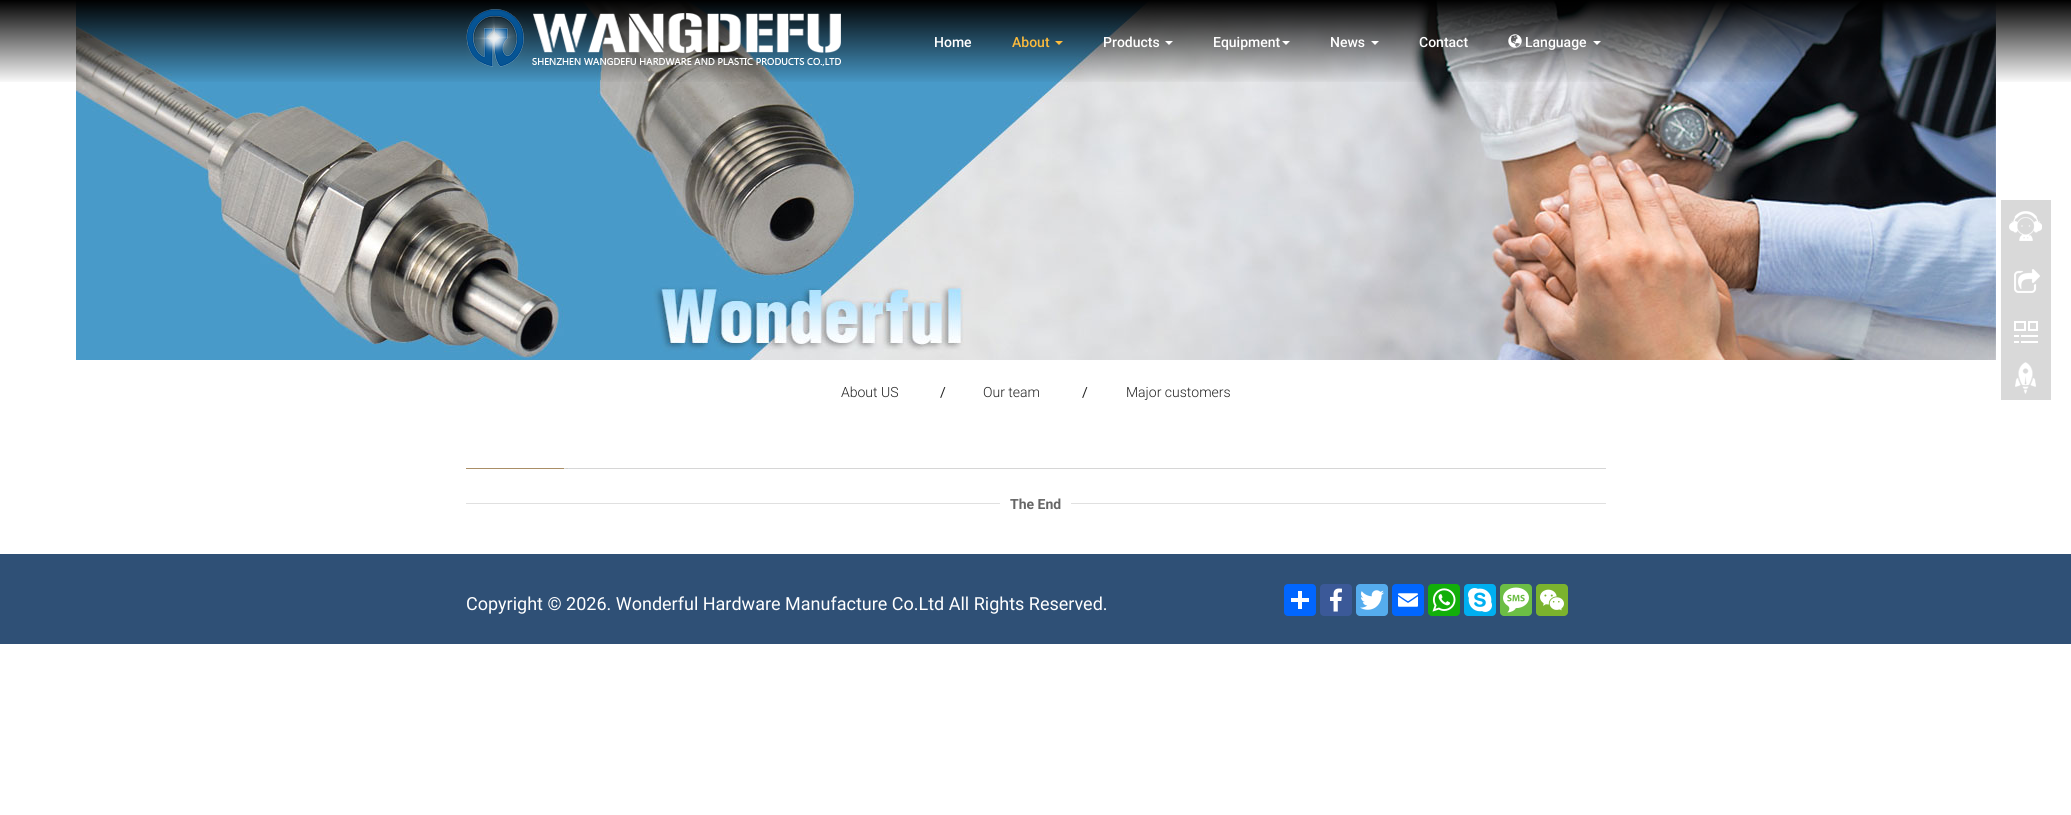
import math
import cairocffi as cairo

surface = cairo.ImageSurface(cairo.FORMAT_RGB24, 2071, 815)
ctx = cairo.Context(surface)
options = cairo.FontOptions()
options.set_hint_metrics(cairo.HINT_METRICS_OFF)
options.set_hint_style(cairo.HINT_STYLE_NONE)
ctx.set_font_options(options)
ctx.set_miter_limit(4)


def rgb(r, g, b):
    ctx.set_source_rgb(r / 255, g / 255, b / 255)


def face(family, size, italic, bold):
    ctx.select_font_face(family, cairo.FONT_SLANT_ITALIC if italic else cairo.FONT_SLANT_NORMAL, cairo.FONT_WEIGHT_BOLD if bold else cairo.FONT_WEIGHT_NORMAL)
    ctx.set_font_size(size)


def label(x, y, s):
    ctx.move_to(x, y)
    ctx.show_text(s)


def rect(x, y, w, h):
    ctx.rectangle(x, y, w, h)
    ctx.fill()


def rrect(x, y, w, h, r):
    ctx.new_sub_path()
    for i, (u, v) in enumerate([(x + w - r, y + h - r), (x + r, y + h - r), (x + r, y + r), (x + w - r, y + r)]):
        ctx.arc(u, v, r, i * math.pi / 2, (i + 1) * math.pi / 2)
    ctx.close_path()


def image(path, x, y, w, h):
    ctx.save()
    ctx.set_source_surface(cairo.ImageSurface.create_from_png(path), x, y)
    ctx.rectangle(x, y, w, h)
    ctx.fill()
    ctx.restore()


rgb(255, 255, 255)
ctx.paint()
image('image0.png', 76, 0, 1920, 360)
gradient = cairo.LinearGradient(1036, 0, 1036, 84)
gradient.add_color_stop_rgba(0, 0, 0, 0, 1)
gradient.add_color_stop_rgba(1, 0, 0, 0, 0)
ctx.set_source(gradient)
rect(0, 0, 2071, 82)
image('image1.png', 466, 9, 375, 58)
face('Roboto Medium', 14, 0, 0)
rgb(255, 255, 255)
label(934, 47, 'Home')
rgb(252, 187, 60)
label(1012, 47, 'About')
ctx.new_path()
ctx.move_to(1055, 41)
ctx.line_to(1063, 41)
ctx.line_to(1059, 45)
ctx.close_path()
ctx.fill()
rgb(255, 255, 255)
label(1103, 47, 'Products')
ctx.new_path()
ctx.move_to(1165, 41)
ctx.line_to(1173, 41)
ctx.line_to(1169, 45)
ctx.close_path()
ctx.fill()
label(1213, 47, 'Equipment')
ctx.new_path()
ctx.move_to(1282, 41)
ctx.line_to(1290, 41)
ctx.line_to(1286, 45)
ctx.close_path()
ctx.fill()
label(1330, 47, 'News')
ctx.new_path()
ctx.move_to(1371, 41)
ctx.line_to(1379, 41)
ctx.line_to(1375, 45)
ctx.close_path()
ctx.fill()
label(1419, 47, 'Contact')
image('image2.png', 1508, 34, 14, 14)
label(1525, 47, 'Language')
ctx.new_path()
ctx.move_to(1593, 41)
ctx.line_to(1601, 41)
ctx.line_to(1597, 45)
ctx.close_path()
ctx.fill()
image('image3.png', 2001, 200, 50, 200)
face('Roboto Light', 14, 0, 0)
rgb(33, 33, 33)
label(841, 397, 'About US')
face('Roboto', 14, 0, 0)
label(940, 397, '/')
face('Roboto Light', 14, 0, 0)
label(983, 397, 'Our team')
face('Roboto', 14, 0, 0)
label(1082, 397, '/')
face('Roboto Light', 14, 0, 0)
label(1126, 397, 'Major customers')
image('image4.png', 466, 468, 1140, 1)
rgb(224, 224, 224)
rect(466, 503, 1140, 1)
rgb(255, 255, 255)
rect(1000, 503, 71, 1)
face('Roboto', 14, 0, 1)
rgb(102, 102, 102)
label(1010, 509, 'The End')
rgb(47, 80, 118)
rect(0, 554, 2071, 90)
face('Roboto', 18, 0, 0)
rgb(255, 255, 255)
label(466, 610, 'Copyright © 2026. Wonderful Hardware Manufacture Co.Ltd All Rights Reserved.')
rgb(1, 102, 255)
rrect(1284, 584, 32, 32, 4)
ctx.fill()
rgb(255, 255, 255)
rect(1298, 591, 4, 18)
rect(1291, 598, 18, 4)
rgb(59, 89, 152)
rrect(1320, 584, 32, 32, 4)
ctx.fill()
image('image5.png', 1330, 588, 12, 24)
rgb(85, 172, 238)
rrect(1356, 584, 32, 32, 4)
ctx.fill()
image('image6.png', 1360, 590, 24, 20)
rgb(1, 102, 255)
rrect(1392, 584, 32, 32, 4)
ctx.fill()
image('image7.png', 1398, 593, 20, 14)
rgb(18, 175, 10)
rrect(1428, 584, 32, 32, 4)
ctx.fill()
image('image8.png', 1432, 588, 24, 24)
rgb(0, 175, 240)
rrect(1464, 584, 32, 32, 4)
ctx.fill()
image('image9.png', 1468, 588, 24, 24)
rgb(108, 190, 69)
rrect(1500, 584, 32, 32, 4)
ctx.fill()
image('image10.png', 1503, 587, 26, 26)
rgb(123, 179, 46)
rrect(1536, 584, 32, 32, 4)
ctx.fill()
image('image11.png', 1540, 589, 24, 22)
surface.write_to_png('render.png')
